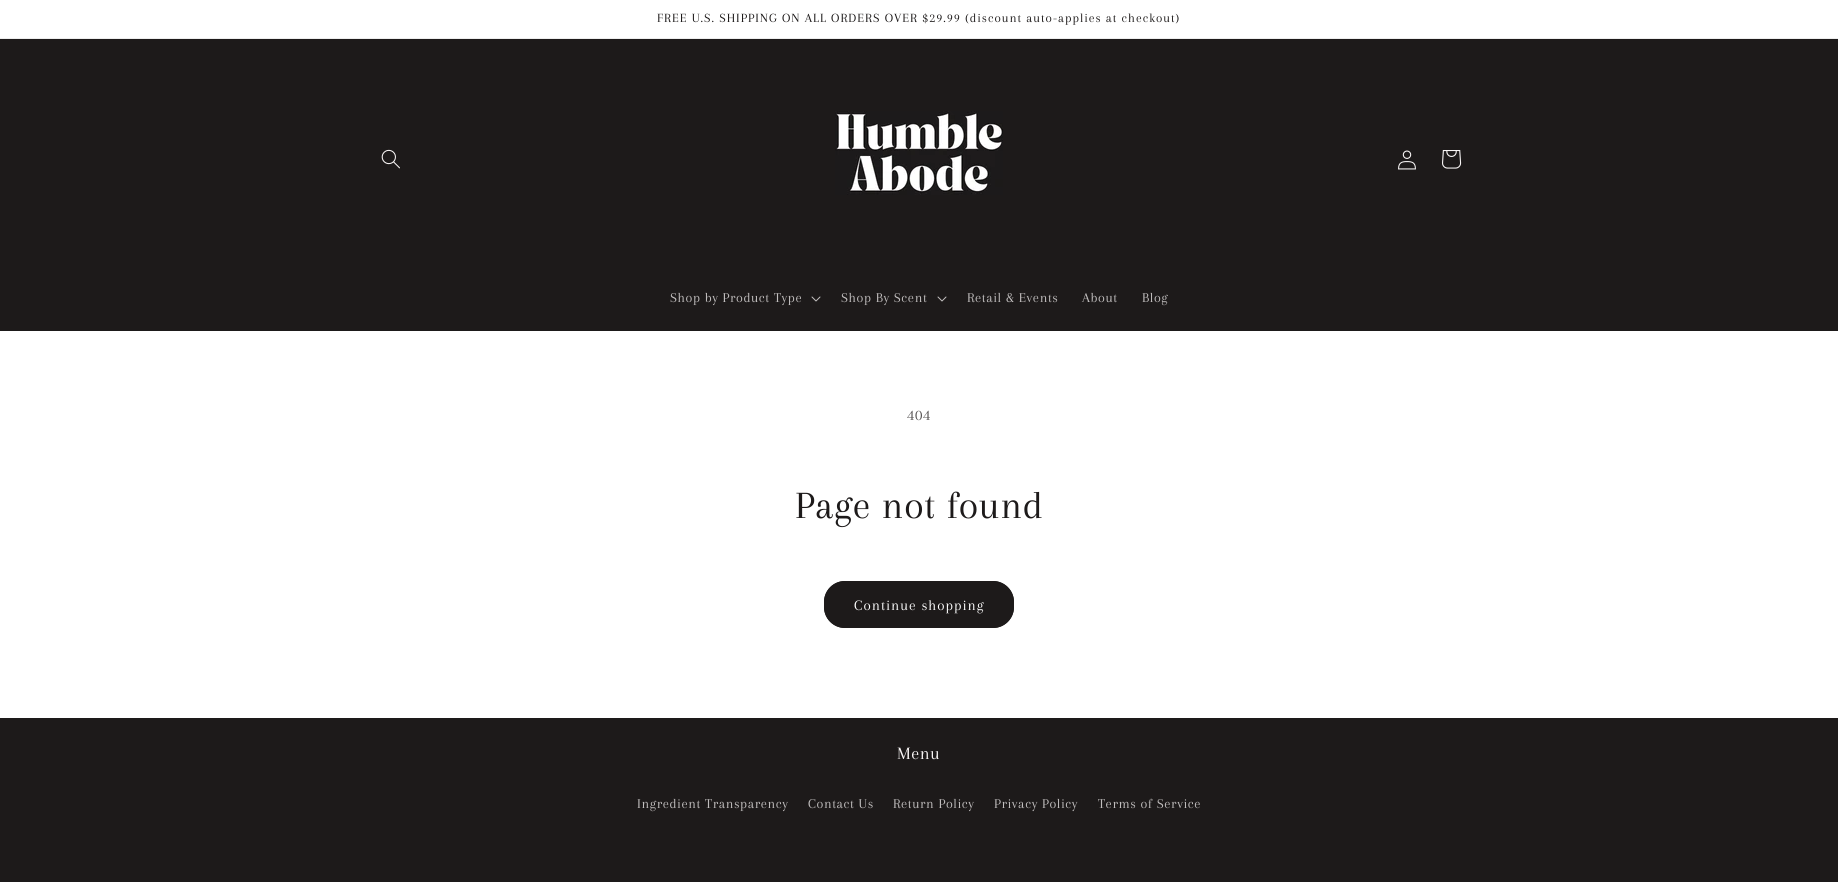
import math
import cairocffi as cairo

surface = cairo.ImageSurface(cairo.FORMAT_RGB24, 1838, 882)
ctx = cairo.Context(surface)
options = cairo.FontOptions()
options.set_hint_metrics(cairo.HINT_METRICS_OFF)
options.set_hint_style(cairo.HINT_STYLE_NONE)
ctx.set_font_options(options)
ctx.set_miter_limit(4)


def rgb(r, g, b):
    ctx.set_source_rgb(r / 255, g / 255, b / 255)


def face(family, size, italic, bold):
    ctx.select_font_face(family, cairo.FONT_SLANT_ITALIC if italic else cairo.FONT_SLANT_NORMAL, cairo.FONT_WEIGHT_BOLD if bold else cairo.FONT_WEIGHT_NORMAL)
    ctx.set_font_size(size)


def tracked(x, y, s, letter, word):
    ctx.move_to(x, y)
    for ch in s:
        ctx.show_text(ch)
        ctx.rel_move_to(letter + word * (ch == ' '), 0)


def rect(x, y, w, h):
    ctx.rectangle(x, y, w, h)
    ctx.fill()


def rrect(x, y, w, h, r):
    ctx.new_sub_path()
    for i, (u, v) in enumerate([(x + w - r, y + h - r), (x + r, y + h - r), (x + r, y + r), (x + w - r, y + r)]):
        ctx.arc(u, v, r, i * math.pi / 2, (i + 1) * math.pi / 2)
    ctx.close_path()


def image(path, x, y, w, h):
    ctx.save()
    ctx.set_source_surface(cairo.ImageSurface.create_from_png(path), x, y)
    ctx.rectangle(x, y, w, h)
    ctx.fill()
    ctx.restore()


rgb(255, 255, 255)
ctx.paint()
rgb(237, 237, 237)
rect(0, 38, 1838, 1)
face('Arapey', 13, 0, 0)
rgb(29, 26, 26)
tracked(657, 22, 'FREE U.S. SHIPPING ON ALL ORDERS OVER $29.99 (discount auto-applies at checkout)', 1, 0)
rect(0, 39, 1838, 292)
image('image0.png', 381, 149, 19, 20)
image('image1.png', 835, 111, 168, 84)
image('image2.png', 1398, 150, 18, 20)
image('image3.png', 1442, 150, 20, 19)
face('Arapey', 14, 0, 0)
rgb(194, 191, 191)
tracked(670, 302, 'Shop by Product Type', 0.6, 0)
image('image4.png', 811, 296, 10, 6)
tracked(841, 302, 'Shop By Scent', 0.6, 0)
image('image4.png', 937, 296, 10, 6)
tracked(967, 302, 'Retail & Events', 0.6, 0)
tracked(1082, 302, 'About', 0.6, 0)
tracked(1142, 302, 'Blog', 0.6, 0)
face('Arapey', 16, 0, 0)
rgb(86, 83, 83)
tracked(907, 420, '404', 0.6, 0)
face('Arapey', 40, 0, 0)
rgb(29, 26, 26)
tracked(795, 518, 'Page not found', 0.6, 0)
rrect(824, 581, 190, 47, 21)
ctx.fill()
rrect(824.5, 581.5, 189, 46, 20.5)
ctx.set_line_width(1)
ctx.stroke()
face('Arapey', 15, 0, 0)
rgb(255, 255, 255)
tracked(854, 610, 'Continue shopping', 1, 0)
rgb(29, 26, 26)
rect(0, 718, 1838, 164)
face('Arapey', 18, 0, 0)
rgb(249, 246, 246)
tracked(897, 759, 'Menu', 0.6, 0)
face('Arapey', 14, 0, 0)
rgb(194, 191, 191)
tracked(637, 808, 'Ingredient Transparency', 0.6, 0)
tracked(808, 808, 'Contact Us', 0.6, 0)
tracked(893, 808, 'Return Policy', 0.6, 0)
tracked(994, 808, 'Privacy Policy', 0.6, 0)
tracked(1098, 808, 'Terms of Service', 0.6, 0)
surface.write_to_png('render.png')
